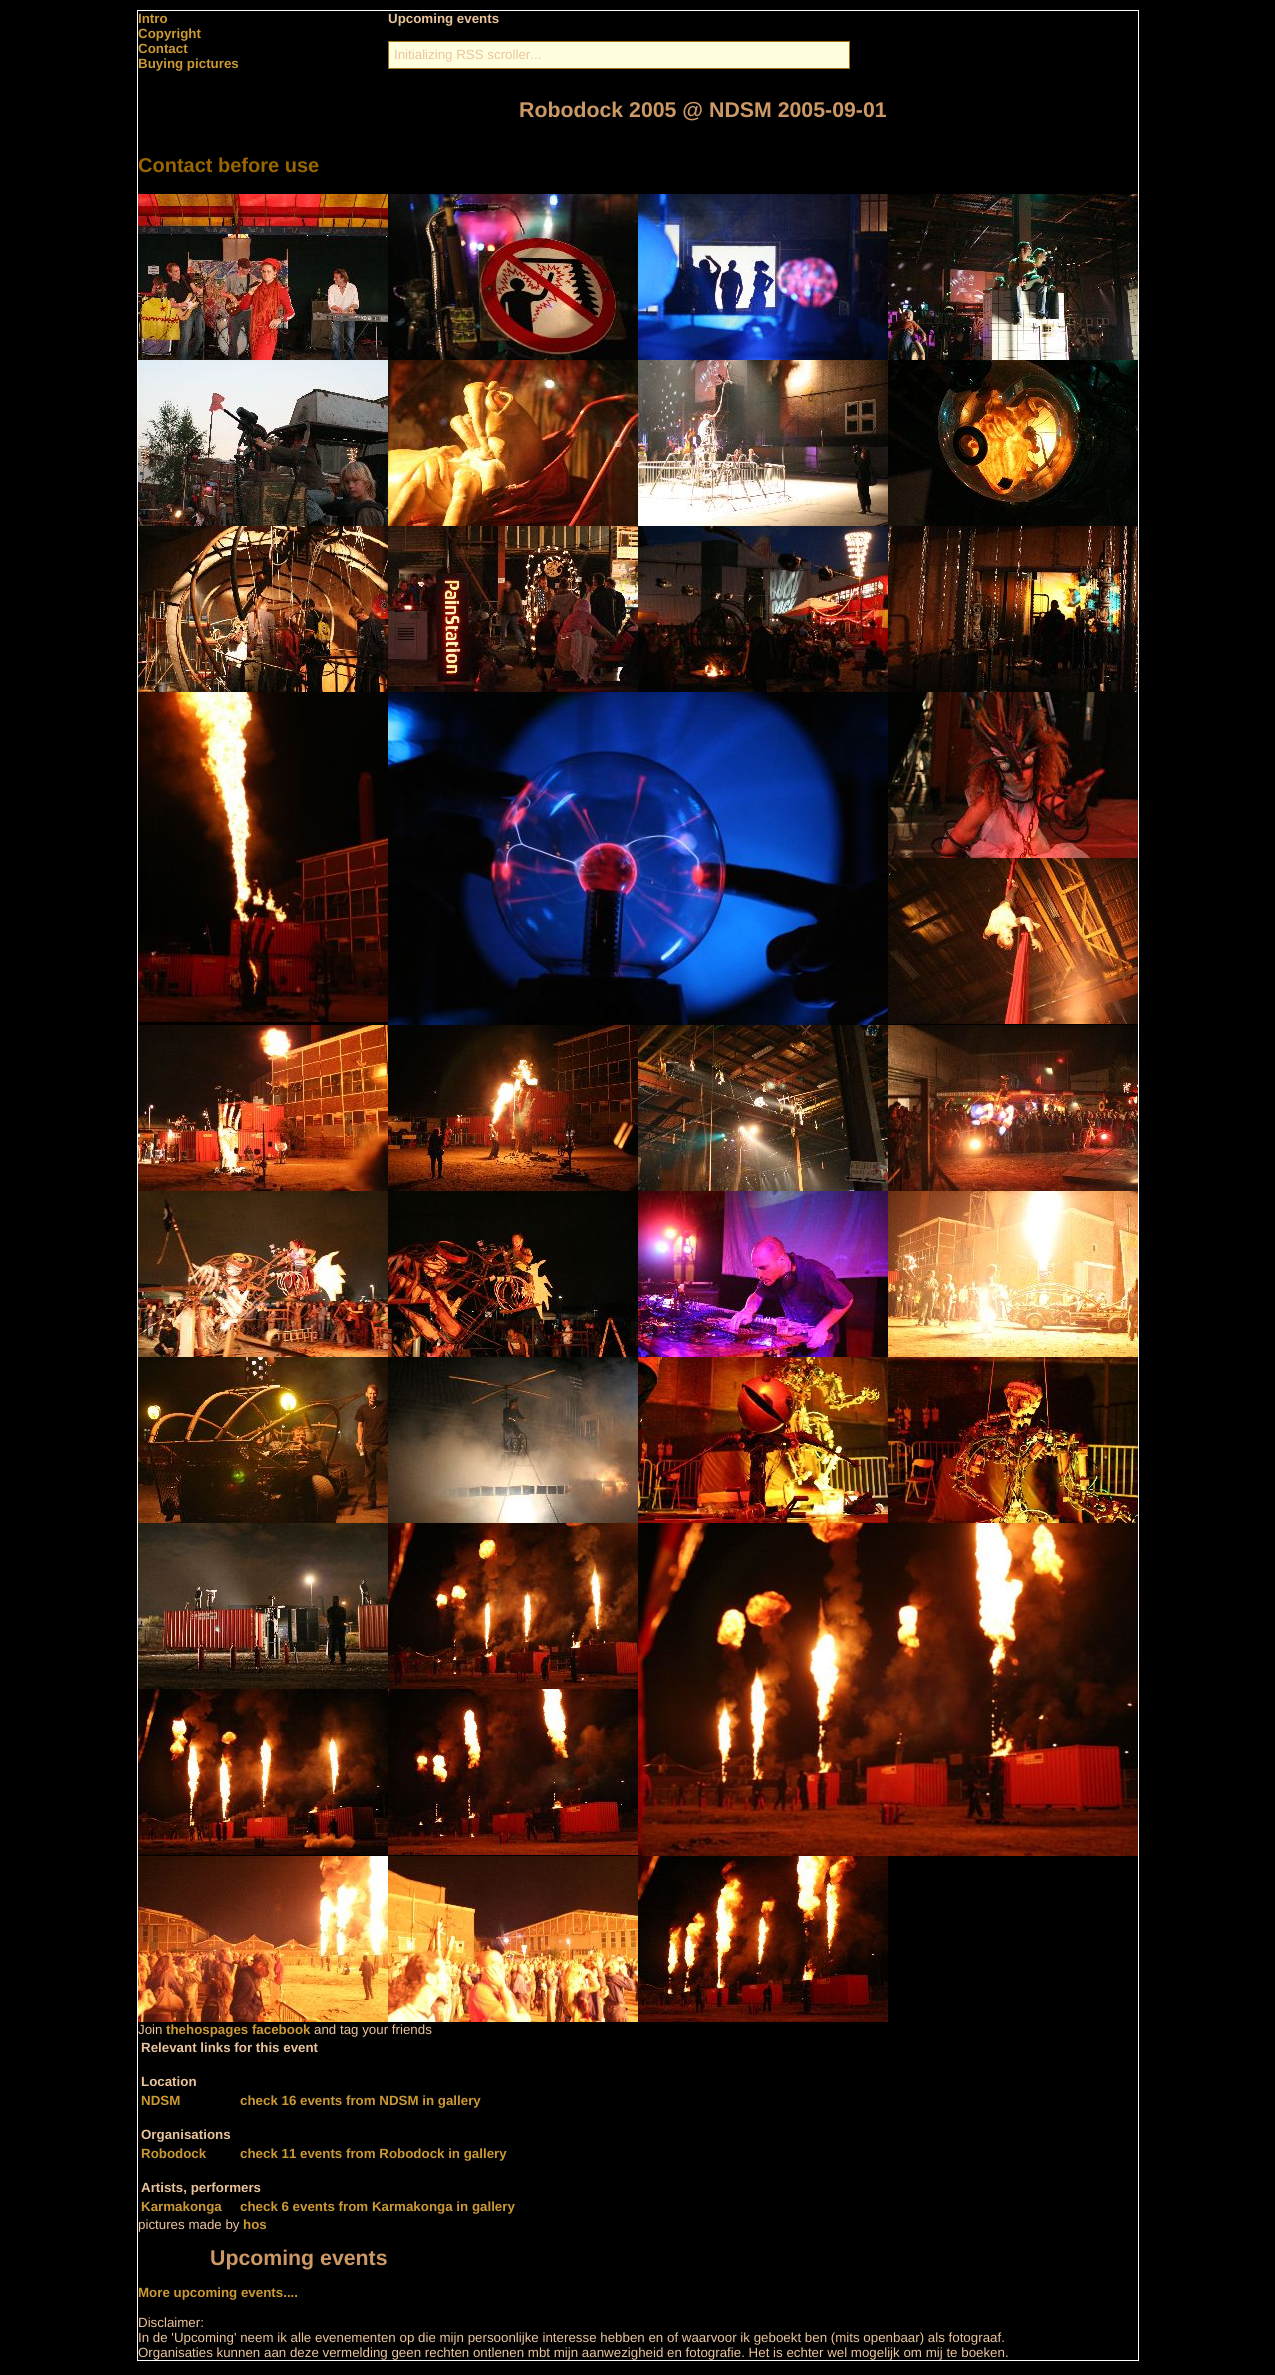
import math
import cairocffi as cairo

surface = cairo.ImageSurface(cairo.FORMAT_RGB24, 1275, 2375)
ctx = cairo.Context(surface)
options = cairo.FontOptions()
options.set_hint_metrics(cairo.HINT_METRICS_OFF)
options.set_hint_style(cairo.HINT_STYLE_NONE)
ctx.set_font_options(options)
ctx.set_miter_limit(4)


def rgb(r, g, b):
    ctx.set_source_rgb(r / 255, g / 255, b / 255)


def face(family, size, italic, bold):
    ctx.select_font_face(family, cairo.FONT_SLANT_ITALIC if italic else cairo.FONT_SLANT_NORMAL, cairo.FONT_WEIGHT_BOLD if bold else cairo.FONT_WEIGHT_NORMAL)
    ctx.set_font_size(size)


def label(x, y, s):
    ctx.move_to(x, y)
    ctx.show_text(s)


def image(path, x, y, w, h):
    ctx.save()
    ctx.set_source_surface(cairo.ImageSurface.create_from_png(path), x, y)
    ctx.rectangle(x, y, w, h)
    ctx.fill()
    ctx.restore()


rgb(0, 0, 0)
ctx.paint()
ctx.rectangle(137.5, 10.5, 1001, 2350)
rgb(255, 255, 255)
ctx.set_line_width(1)
ctx.stroke()
face('Liberation Sans', 13.33, 0, 1)
rgb(204, 153, 51)
label(138, 23, 'Intro')
label(138, 38, 'Copyright')
label(138, 53, 'Contact')
label(138, 68, 'Buying pictures')
rgb(235, 196, 155)
label(388, 23, 'Upcoming events')
rgb(255, 255, 224)
ctx.rectangle(388.5, 41.5, 461, 27)
ctx.fill_preserve()
rgb(161, 112, 23)
ctx.stroke()
face('Liberation Sans', 13.33, 0, 0)
rgb(235, 196, 155)
label(394, 59, 'Initializing RSS scroller...')
face('Liberation Sans', 21.3, 0, 1)
rgb(204, 153, 102)
label(519, 117, 'Robodock 2005 @ NDSM 2005-09-01')
face('Liberation Sans', 20, 0, 1)
rgb(153, 102, 0)
label(138, 172, 'Contact before use')
image('image0.png', 138, 194, 250, 166)
image('image1.png', 388, 194, 250, 166)
image('image2.png', 638, 194, 250, 166)
image('image3.png', 888, 194, 250, 166)
image('image4.png', 138, 360, 250, 166)
image('image5.png', 388, 360, 250, 166)
image('image6.png', 638, 360, 250, 166)
image('image7.png', 888, 360, 250, 166)
image('image8.png', 138, 526, 250, 166)
image('image9.png', 388, 526, 250, 166)
image('image10.png', 638, 526, 250, 166)
image('image11.png', 888, 526, 250, 166)
image('image12.png', 138, 692, 250, 330)
image('image13.png', 388, 692, 500, 333)
image('image14.png', 888, 692, 250, 166)
image('image15.png', 888, 858, 250, 166)
image('image16.png', 138, 1025, 250, 166)
image('image17.png', 388, 1025, 250, 166)
image('image18.png', 638, 1025, 250, 166)
image('image19.png', 888, 1025, 250, 166)
image('image20.png', 138, 1191, 250, 166)
image('image21.png', 388, 1191, 250, 166)
image('image22.png', 638, 1191, 250, 166)
image('image23.png', 888, 1191, 250, 166)
image('image24.png', 138, 1357, 250, 166)
image('image25.png', 388, 1357, 250, 166)
image('image26.png', 638, 1357, 250, 166)
image('image27.png', 888, 1357, 250, 166)
image('image28.png', 138, 1523, 250, 166)
image('image29.png', 138, 1689, 250, 166)
image('image30.png', 388, 1523, 250, 166)
image('image31.png', 388, 1689, 250, 166)
image('image32.png', 638, 1523, 500, 333)
image('image33.png', 138, 1856, 250, 166)
image('image34.png', 388, 1856, 250, 166)
image('image35.png', 638, 1856, 250, 166)
face('Liberation Sans', 13.33, 0, 0)
rgb(235, 196, 155)
label(138, 2034, 'Join')
face('Liberation Sans', 13.33, 0, 1)
rgb(204, 153, 51)
label(166, 2034, 'thehospages facebook')
face('Liberation Sans', 13.33, 0, 0)
rgb(235, 196, 155)
label(314, 2034, 'and tag your friends')
face('Liberation Sans', 13.33, 0, 1)
label(141, 2052, 'Relevant links for this event')
label(141, 2086, 'Location')
rgb(204, 153, 51)
label(141, 2105, 'NDSM')
label(240, 2105, 'check 16 events from NDSM in gallery')
rgb(235, 196, 155)
label(141, 2139, 'Organisations')
rgb(204, 153, 51)
label(141, 2158, 'Robodock')
label(240, 2158, 'check 11 events from Robodock in gallery')
rgb(235, 196, 155)
label(141, 2192, 'Artists, performers')
rgb(204, 153, 51)
label(141, 2211, 'Karmakonga')
label(240, 2211, 'check 6 events from Karmakonga in gallery')
face('Liberation Sans', 13.33, 0, 0)
rgb(235, 196, 155)
label(138, 2229, 'pictures made by')
face('Liberation Sans', 13.33, 0, 1)
rgb(204, 153, 51)
label(243, 2229, 'hos')
face('Liberation Sans', 21.3, 0, 1)
rgb(204, 153, 102)
label(210, 2265, 'Upcoming events')
face('Liberation Sans', 13.33, 0, 1)
rgb(204, 153, 51)
label(138, 2297, 'More upcoming events....')
face('Liberation Sans', 13.33, 0, 0)
rgb(235, 196, 155)
label(138, 2327, 'Disclaimer:')
label(138, 2342, 'In de \'Upcoming\' neem ik alle evenementen op die mijn persoonlijke interesse hebben en of waarvoor ik geboekt ben (mits openbaar) als fotograaf.')
label(138, 2357, 'Organisaties kunnen aan deze vermelding geen rechten ontlenen mbt mijn aanwezigheid en fotografie. Het is echter wel mogelijk om mij te boeken.')
surface.write_to_png('render.png')
